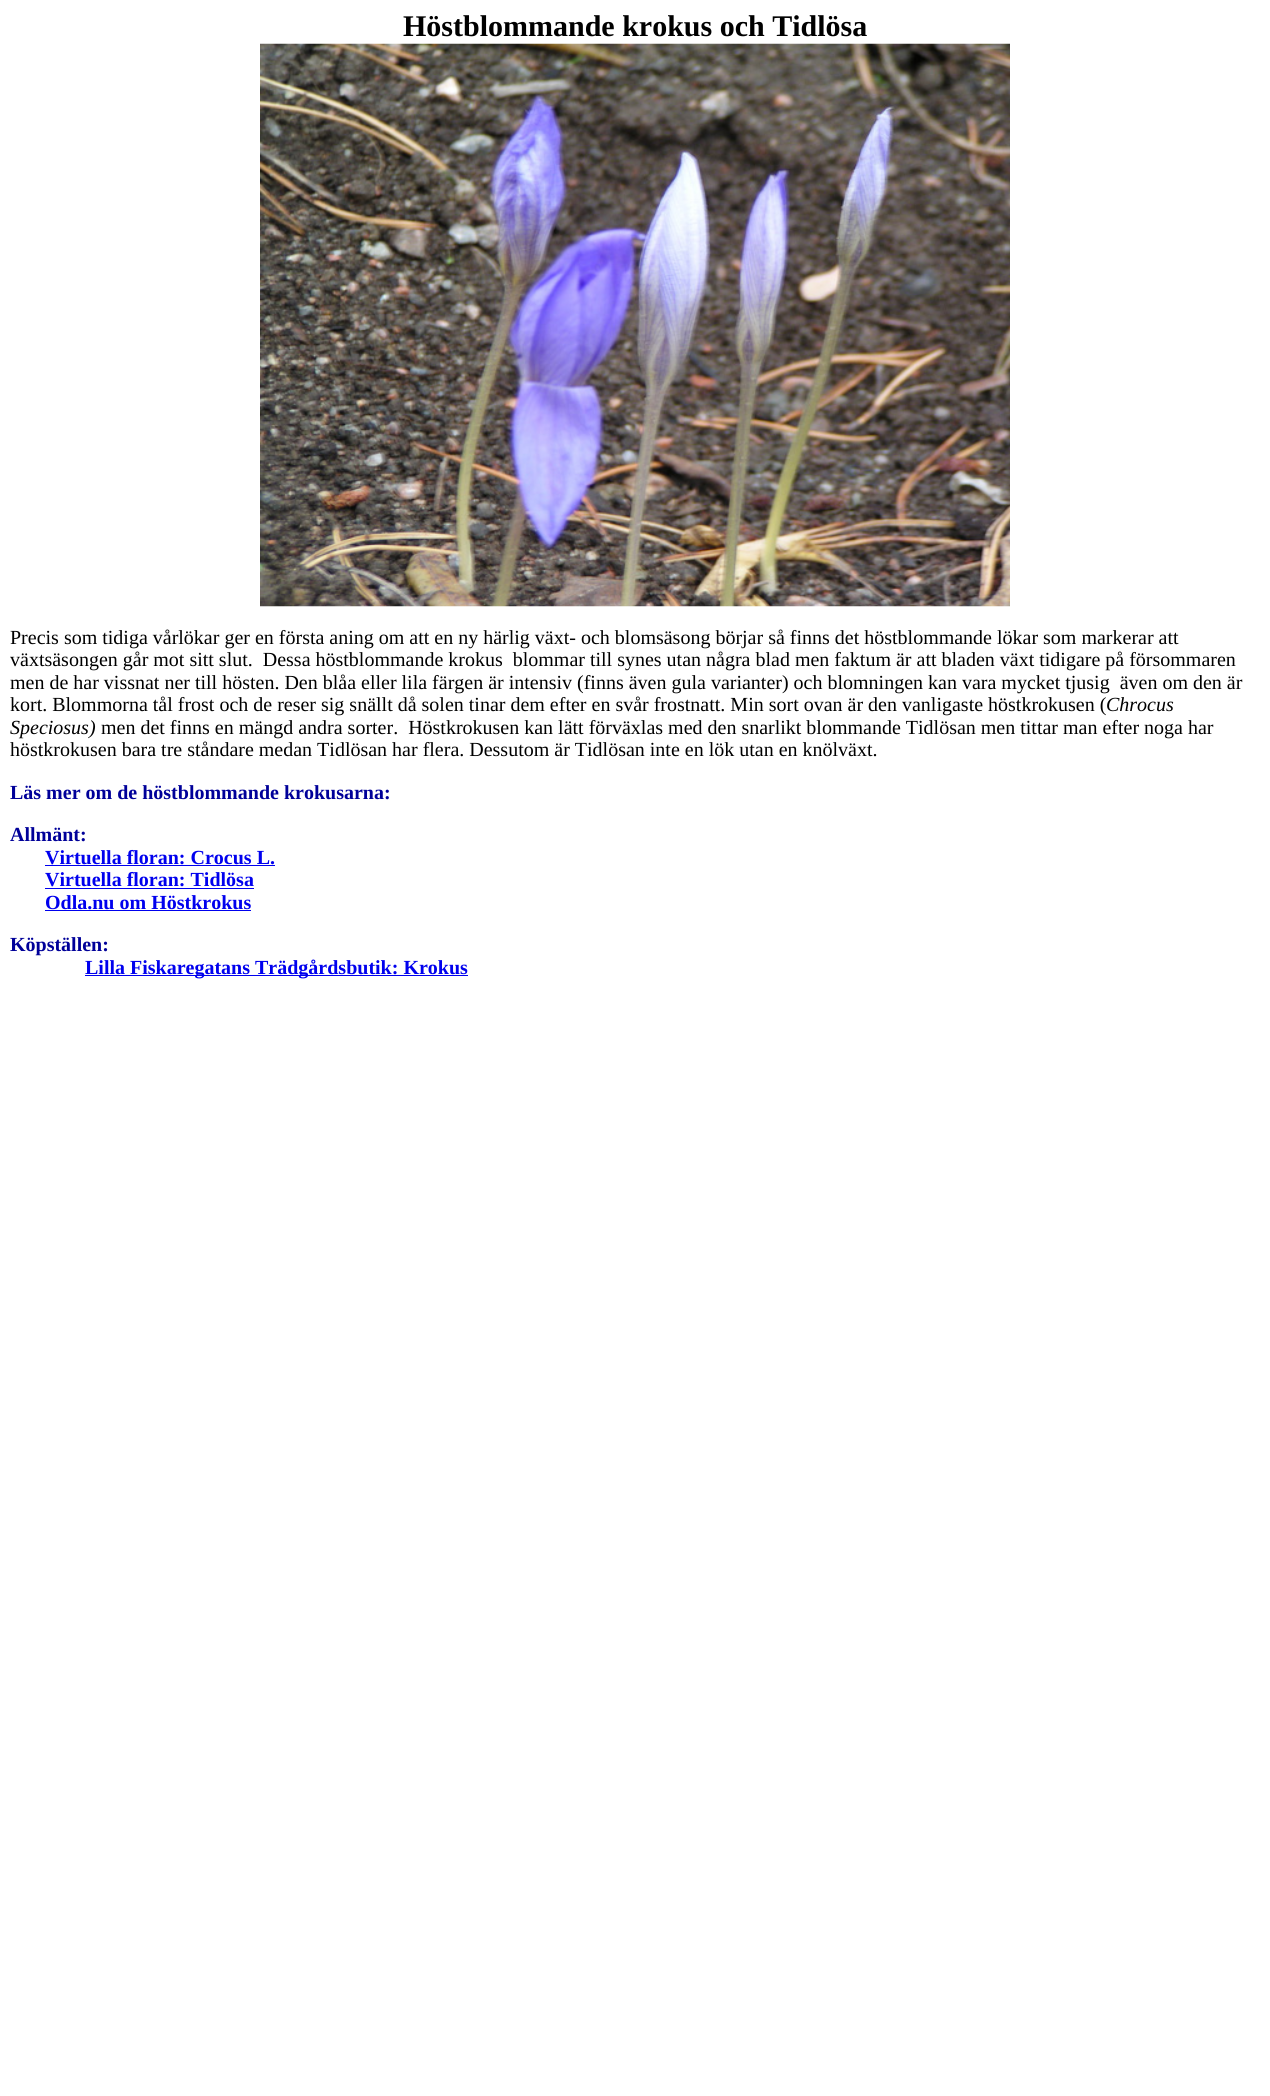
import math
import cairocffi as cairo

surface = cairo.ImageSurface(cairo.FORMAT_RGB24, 1270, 2096)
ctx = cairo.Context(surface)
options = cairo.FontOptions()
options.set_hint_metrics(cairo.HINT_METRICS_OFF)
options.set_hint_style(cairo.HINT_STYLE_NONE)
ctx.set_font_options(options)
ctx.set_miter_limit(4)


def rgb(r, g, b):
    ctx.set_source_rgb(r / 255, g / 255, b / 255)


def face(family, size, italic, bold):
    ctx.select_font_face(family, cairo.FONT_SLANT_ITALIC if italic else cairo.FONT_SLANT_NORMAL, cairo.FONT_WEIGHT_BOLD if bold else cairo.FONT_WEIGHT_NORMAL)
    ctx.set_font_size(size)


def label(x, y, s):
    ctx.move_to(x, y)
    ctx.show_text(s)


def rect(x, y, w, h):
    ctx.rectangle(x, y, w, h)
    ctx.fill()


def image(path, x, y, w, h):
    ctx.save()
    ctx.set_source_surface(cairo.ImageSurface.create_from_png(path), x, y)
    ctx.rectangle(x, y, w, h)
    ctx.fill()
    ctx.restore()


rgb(255, 255, 255)
ctx.paint()
face('Liberation Serif', 30, 0, 1)
rgb(0, 0, 0)
label(403, 36, 'Höstblommande krokus och Tidlösa')
image('image0.png', 260, 43, 750, 564)
face('Liberation Serif', 20, 0, 0)
label(10, 644, 'Precis som tidiga vårlökar ger en första aning om att en ny härlig växt- och blomsäsong börjar så finns det höstblommande lökar som markerar att')
label(10, 666, 'växtsäsongen går mot sitt slut.  Dessa höstblommande krokus  blommar till synes utan några blad men faktum är att bladen växt tidigare på försommaren')
label(10, 689, 'men de har vissnat ner till hösten. Den blåa eller lila färgen är intensiv (finns även gula varianter) och blomningen kan vara mycket tjusig  även om den är')
label(10, 711, 'kort. Blommorna tål frost och de reser sig snällt då solen tinar dem efter en svår frostnatt. Min sort ovan är den vanligaste höstkrokusen (')
face('Liberation Serif', 20, 1, 0)
label(1106, 711, 'Chrocus')
label(10, 734, 'Speciosus)')
face('Liberation Serif', 20, 0, 0)
label(101, 734, 'men det finns en mängd andra sorter.  Höstkrokusen kan lätt förväxlas med den snarlikt blommande Tidlösan men tittar man efter noga har')
label(10, 756, 'höstkrokusen bara tre ståndare medan Tidlösan har flera. Dessutom är Tidlösan inte en lök utan en knölväxt.')
face('Liberation Serif', 20, 0, 1)
rgb(0, 0, 153)
label(10, 799, 'Läs mer om de höstblommande krokusarna:')
label(10, 841, 'Allmänt:')
rgb(0, 0, 238)
label(45, 864, 'Virtuella floran: Crocus L.')
rect(45, 865, 230, 1)
label(45, 886, 'Virtuella floran: Tidlösa')
rect(45, 888, 209, 1)
label(45, 909, 'Odla.nu om Höstkrokus')
rect(45, 910, 206, 1)
rgb(0, 0, 153)
label(10, 951, 'Köpställen:')
rgb(0, 0, 238)
rect(85, 975, 383, 1)
label(85, 974, 'Lilla Fiskaregatans Trädgårdsbutik: Krokus')
surface.write_to_png('render.png')
